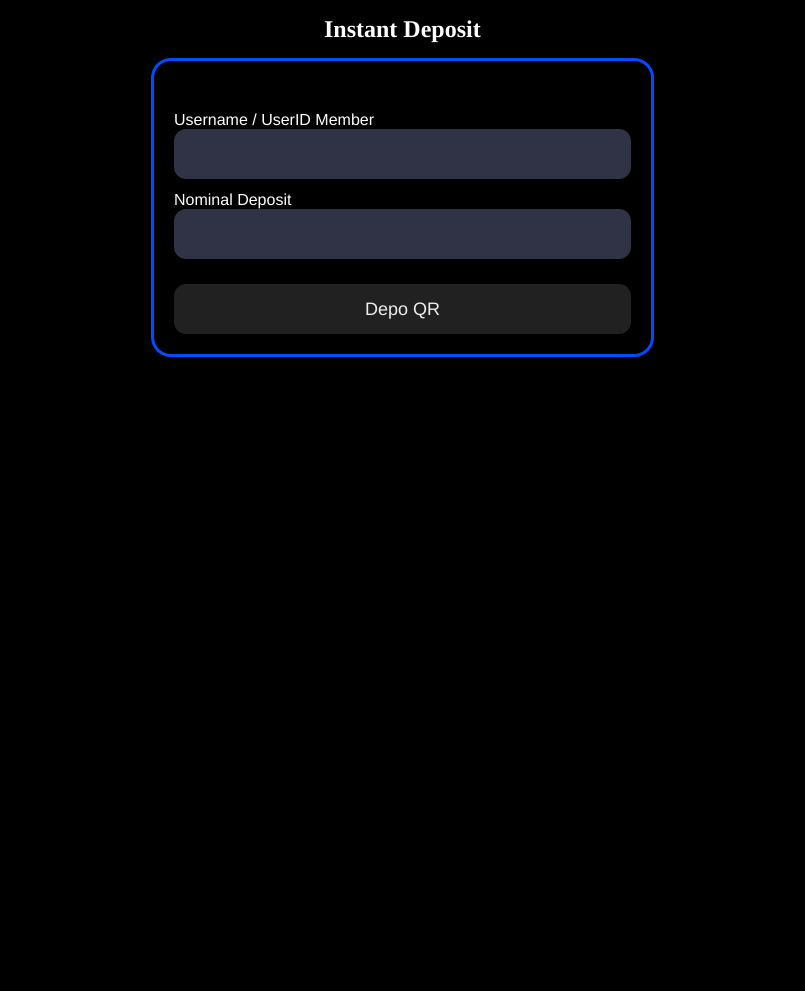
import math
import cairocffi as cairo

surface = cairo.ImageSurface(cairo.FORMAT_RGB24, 805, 991)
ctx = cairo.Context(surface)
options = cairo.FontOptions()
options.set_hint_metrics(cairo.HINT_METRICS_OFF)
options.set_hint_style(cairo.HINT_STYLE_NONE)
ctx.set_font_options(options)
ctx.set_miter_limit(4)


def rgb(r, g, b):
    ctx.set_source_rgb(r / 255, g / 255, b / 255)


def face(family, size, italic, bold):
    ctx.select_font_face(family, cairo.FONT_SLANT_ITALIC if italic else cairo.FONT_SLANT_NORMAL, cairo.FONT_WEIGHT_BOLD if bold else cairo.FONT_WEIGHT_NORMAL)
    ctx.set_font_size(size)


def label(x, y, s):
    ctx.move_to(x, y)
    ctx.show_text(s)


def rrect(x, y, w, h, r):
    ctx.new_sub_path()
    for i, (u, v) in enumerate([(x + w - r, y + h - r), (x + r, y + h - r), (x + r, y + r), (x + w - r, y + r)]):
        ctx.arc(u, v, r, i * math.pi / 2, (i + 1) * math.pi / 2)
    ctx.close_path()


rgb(0, 0, 0)
ctx.paint()
face('Liberation Serif', 24, 0, 1)
rgb(255, 255, 255)
label(324, 37, 'Instant Deposit')
rrect(152.5, 59.5, 500, 296, 18.5)
rgb(0, 76, 255)
ctx.set_line_width(3)
ctx.stroke()
face('Liberation Sans', 16, 0, 0)
rgb(255, 255, 255)
label(174, 125, 'Username / UserID Member')
rgb(48, 50, 69)
rrect(174, 129, 457, 50, 12)
ctx.fill()
rgb(255, 255, 255)
label(174, 205, 'Nominal Deposit')
rgb(48, 50, 69)
rrect(174, 209, 457, 50, 12)
ctx.fill()
rgb(33, 33, 33)
rrect(174, 284, 457, 50, 12)
ctx.fill()
face('Liberation Sans', 18, 0, 0)
rgb(238, 238, 238)
label(365, 315, 'Depo QR')
surface.write_to_png('render.png')
